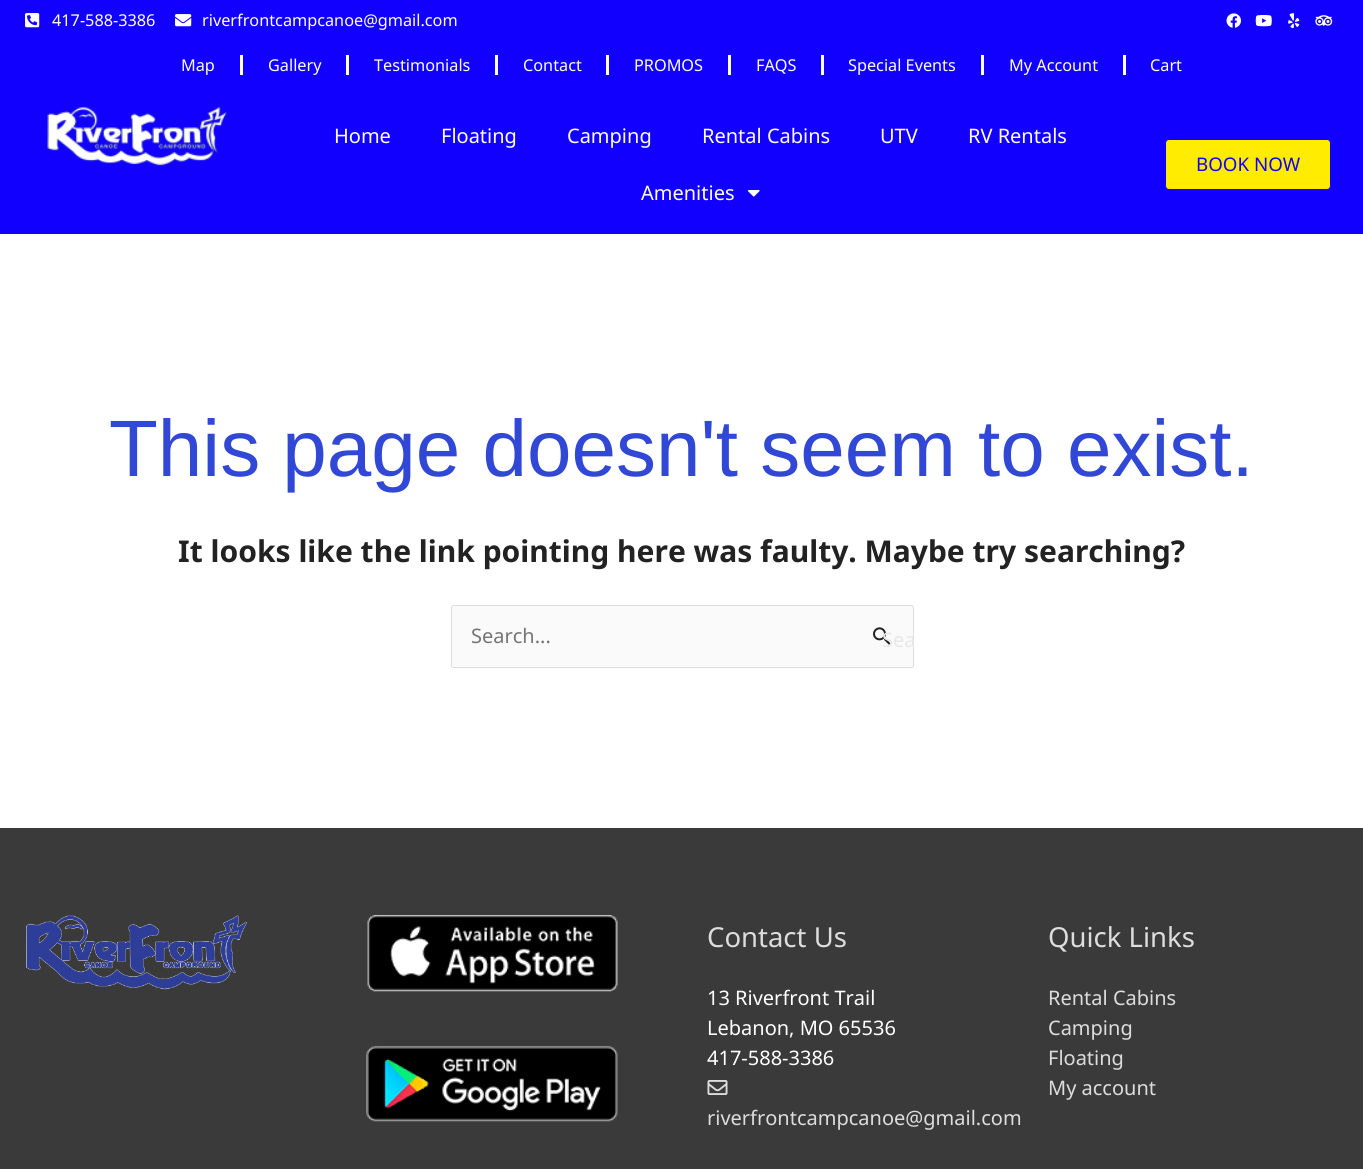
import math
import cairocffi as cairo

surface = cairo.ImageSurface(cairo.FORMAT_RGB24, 1363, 1169)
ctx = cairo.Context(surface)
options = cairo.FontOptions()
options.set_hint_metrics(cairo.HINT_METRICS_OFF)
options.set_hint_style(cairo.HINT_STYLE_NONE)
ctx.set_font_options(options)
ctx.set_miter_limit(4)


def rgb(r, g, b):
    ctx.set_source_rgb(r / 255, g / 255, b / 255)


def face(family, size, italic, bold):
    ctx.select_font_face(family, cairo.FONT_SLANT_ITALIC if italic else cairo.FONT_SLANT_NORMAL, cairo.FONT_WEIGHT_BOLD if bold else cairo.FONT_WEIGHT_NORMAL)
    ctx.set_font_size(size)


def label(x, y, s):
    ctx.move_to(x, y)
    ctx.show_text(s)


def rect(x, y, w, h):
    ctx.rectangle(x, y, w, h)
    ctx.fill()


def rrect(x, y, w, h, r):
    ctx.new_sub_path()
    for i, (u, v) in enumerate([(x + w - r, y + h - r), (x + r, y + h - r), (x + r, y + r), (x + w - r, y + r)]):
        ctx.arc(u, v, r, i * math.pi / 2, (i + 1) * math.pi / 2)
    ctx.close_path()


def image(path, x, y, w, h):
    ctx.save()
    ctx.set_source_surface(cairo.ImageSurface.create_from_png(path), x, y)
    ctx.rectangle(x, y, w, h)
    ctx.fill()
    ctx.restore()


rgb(255, 255, 255)
ctx.paint()
rgb(18, 0, 255)
rect(0, 0, 1363, 234)
image('image0.png', 25, 13, 15, 15)
face('Noto Sans', 16.25, 0, 0)
rgb(255, 255, 255)
label(52, 26, '417-588-3386')
image('image1.png', 175, 14, 17, 13)
label(202, 26, 'riverfrontcampcanoe@gmail.com')
image('image2.png', 1226, 13, 15, 15)
image('image3.png', 1255, 15, 17, 12)
image('image4.png', 1288, 13, 12, 16)
image('image5.png', 1315, 15, 18, 11)
label(181, 71, 'Map')
rect(240, 55, 3, 20)
label(268, 71, 'Gallery')
rect(346, 55, 3, 20)
label(374, 71, 'Testimonials')
rect(495, 55, 3, 20)
label(523, 71, 'Contact')
rect(606, 55, 3, 20)
label(634, 71, 'PROMOS')
rect(728, 55, 3, 20)
label(756, 71, 'FAQS')
rect(821, 55, 3, 20)
label(848, 71, 'Special Events')
rect(981, 55, 3, 20)
label(1009, 71, 'My Account')
rect(1123, 55, 3, 20)
label(1150, 71, 'Cart')
image('image6.png', 47, 106, 180, 60)
face('Noto Sans', 20, 0, 0)
label(334, 143, 'Home')
label(441, 143, 'Floating')
label(567, 143, 'Camping')
label(702, 143, 'Rental Cabins')
label(880, 143, 'UTV')
label(968, 143, 'RV Rentals')
label(641, 200, 'Amenities')
image('image7.png', 748, 190, 12, 7)
rgb(255, 236, 0)
rrect(1165.5, 139.5, 165, 50, 3.5)
ctx.fill_preserve()
rgb(18, 0, 255)
ctx.set_line_width(1)
ctx.stroke()
face('Noto Sans', 18.75, 0, 0)
label(1196, 171, 'BOOK NOW')
face('Liberation Sans', 80, 0, 0)
rgb(49, 72, 214)
label(109, 476, 'This page doesn\'t seem to exist.')
face('Noto Sans', 30, 0, 1)
rgb(34, 34, 34)
label(178, 562, 'It looks like the link pointing here was faulty. Maybe try searching?')
rgb(250, 250, 250)
rrect(451.5, 605.5, 462, 62, 2)
ctx.fill_preserve()
rgb(221, 221, 221)
ctx.stroke()
face('Noto Sans', 20, 0, 0)
rgb(117, 117, 117)
label(471, 643, 'Search...')
image('image8.png', 873, 627, 18, 18)
rgb(231, 231, 231)
label(882, 647, 'Sea')
rgb(58, 58, 58)
rect(0, 828, 1363, 341)
image('image9.png', 26, 915, 221, 75)
image('image10.png', 367, 915, 251, 77)
image('image11.png', 366, 1046, 252, 76)
face('Noto Sans', 27.5, 0, 0)
rgb(221, 221, 221)
label(707, 947, 'Contact Us')
face('Noto Sans', 20, 0, 0)
rgb(255, 255, 255)
label(707, 1005, '13 Riverfront Trail')
label(707, 1035, 'Lebanon, MO 65536')
label(707, 1065, '417-588-3386')
image('image12.png', 707, 1080, 21, 15)
rgb(221, 221, 221)
label(707, 1125, 'riverfrontcampcanoe@gmail.com')
face('Noto Sans', 27.5, 0, 0)
label(1048, 947, 'Quick Links')
face('Noto Sans', 20, 0, 0)
label(1048, 1005, 'Rental Cabins')
label(1048, 1035, 'Camping')
label(1048, 1065, 'Floating')
label(1048, 1095, 'My account')
surface.write_to_png('render.png')
